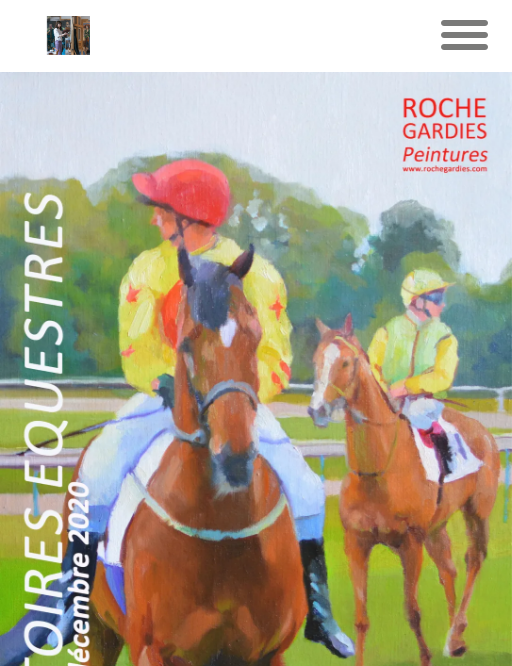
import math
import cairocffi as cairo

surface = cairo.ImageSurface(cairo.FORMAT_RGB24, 512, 666)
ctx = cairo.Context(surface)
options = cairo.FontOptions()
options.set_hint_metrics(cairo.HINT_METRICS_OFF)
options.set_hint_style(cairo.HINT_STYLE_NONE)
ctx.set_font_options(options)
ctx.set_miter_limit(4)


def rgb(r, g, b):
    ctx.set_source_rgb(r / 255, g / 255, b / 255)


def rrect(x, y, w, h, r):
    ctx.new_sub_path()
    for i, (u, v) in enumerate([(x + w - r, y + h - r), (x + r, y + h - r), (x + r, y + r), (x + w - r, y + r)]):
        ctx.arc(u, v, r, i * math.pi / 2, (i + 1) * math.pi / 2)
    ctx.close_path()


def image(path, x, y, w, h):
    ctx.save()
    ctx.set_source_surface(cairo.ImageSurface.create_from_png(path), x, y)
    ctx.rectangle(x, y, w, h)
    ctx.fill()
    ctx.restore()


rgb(255, 255, 255)
ctx.paint()
image('image0.png', 46, 16, 44, 39)
rgb(122, 122, 121)
rrect(441, 32, 47, 6, 3)
ctx.fill()
rrect(441, 20, 47, 6, 3)
ctx.fill()
rrect(441, 44, 47, 6, 3)
ctx.fill()
image('image1.png', 0, 72, 512, 594)
surface.write_to_png('render.png')
